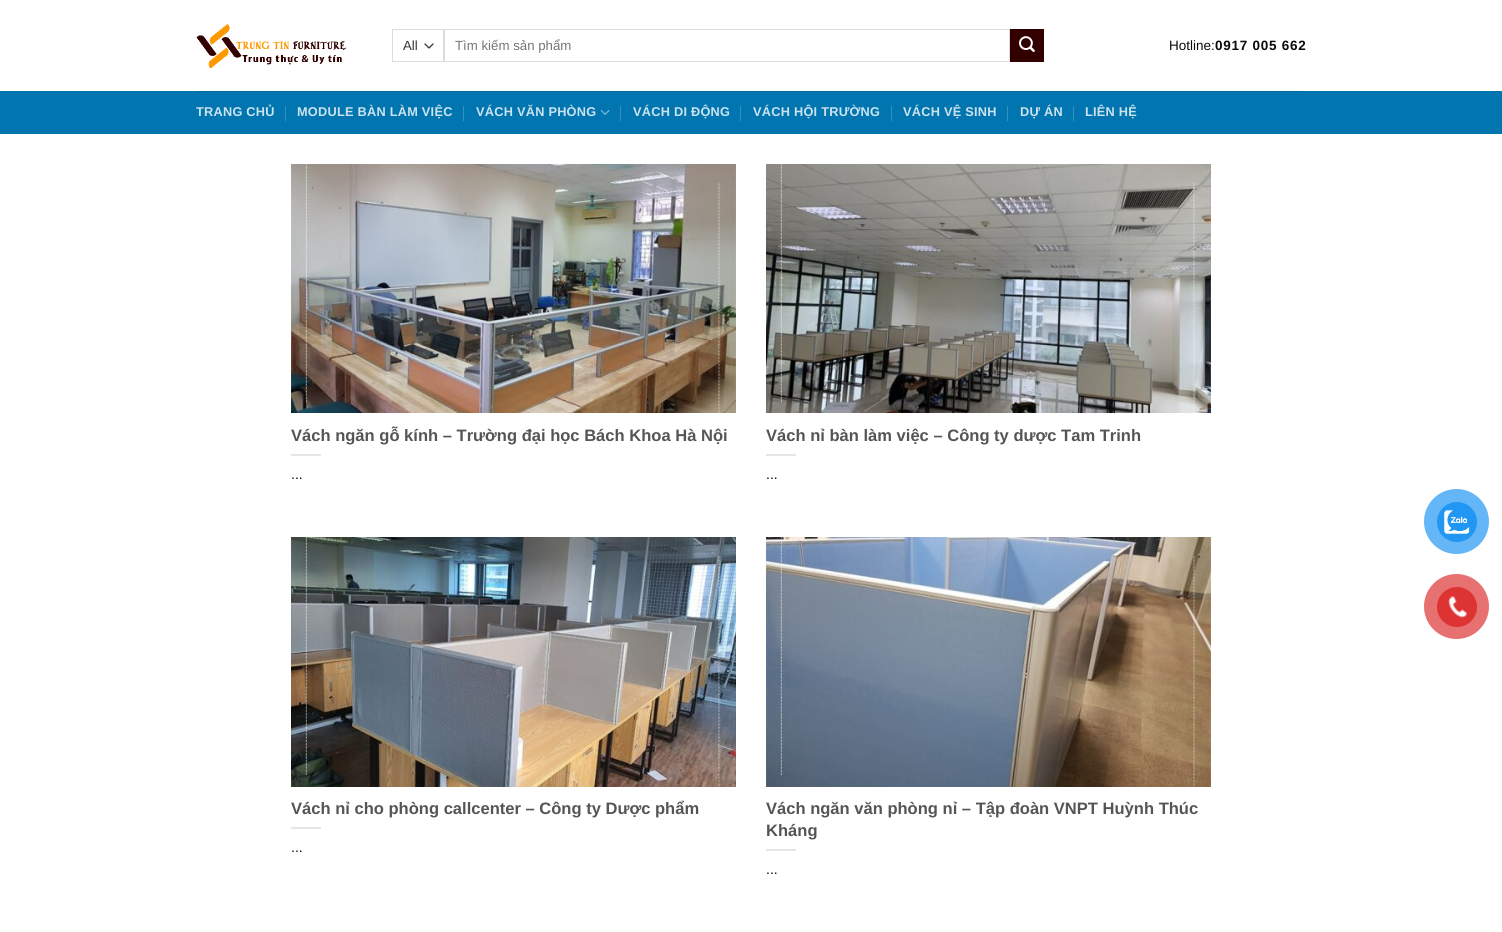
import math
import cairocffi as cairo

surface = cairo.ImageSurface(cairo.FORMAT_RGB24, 1502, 932)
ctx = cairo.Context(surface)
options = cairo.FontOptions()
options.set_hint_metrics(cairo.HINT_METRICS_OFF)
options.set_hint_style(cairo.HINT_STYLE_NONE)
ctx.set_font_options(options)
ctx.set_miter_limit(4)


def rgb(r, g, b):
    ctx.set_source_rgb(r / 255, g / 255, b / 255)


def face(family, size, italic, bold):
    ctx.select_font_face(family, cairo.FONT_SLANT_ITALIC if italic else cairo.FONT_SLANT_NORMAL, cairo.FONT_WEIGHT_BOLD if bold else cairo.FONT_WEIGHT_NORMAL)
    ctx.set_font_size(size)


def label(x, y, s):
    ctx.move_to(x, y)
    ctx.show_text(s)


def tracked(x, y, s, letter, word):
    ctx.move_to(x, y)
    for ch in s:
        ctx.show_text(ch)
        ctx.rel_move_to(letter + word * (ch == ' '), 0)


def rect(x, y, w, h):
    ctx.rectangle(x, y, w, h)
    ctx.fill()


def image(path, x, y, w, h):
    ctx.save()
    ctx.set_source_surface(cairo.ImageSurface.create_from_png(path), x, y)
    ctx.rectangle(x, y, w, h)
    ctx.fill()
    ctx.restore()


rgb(255, 255, 255)
ctx.paint()
image('image0.png', 196, 24, 151, 45)
ctx.new_path()
ctx.move_to(425, 44)
ctx.line_to(429, 48)
ctx.line_to(433, 44)
rgb(51, 51, 51)
ctx.set_line_width(1.3)
ctx.set_line_cap(cairo.LINE_CAP_ROUND)
ctx.set_line_join(cairo.LINE_JOIN_ROUND)
ctx.stroke()
ctx.rectangle(392.5, 29.5, 51, 32)
rgb(221, 221, 221)
ctx.set_line_width(1)
ctx.set_line_cap(cairo.LINE_CAP_BUTT)
ctx.set_line_join(cairo.LINE_JOIN_MITER)
ctx.stroke()
face('Liberation Sans', 13.25, 0, 0)
rgb(51, 51, 51)
label(403, 50, 'All')
ctx.rectangle(444.5, 29.5, 565, 32)
rgb(221, 221, 221)
ctx.stroke()
rgb(117, 117, 117)
label(455, 50, 'Tìm kiếm sản phẩm')
rgb(51, 0, 0)
ctx.rectangle(1010.5, 29.5, 33, 32)
ctx.fill_preserve()
rgb(48, 0, 0)
ctx.stroke()
image('image1.png', 1019, 36, 16, 16)
face('Liberation Sans', 13.5, 0, 0)
rgb(10, 9, 9)
label(1169, 50, 'Hotline:')
face('Liberation Sans', 13.5, 0, 1)
tracked(1215, 50, '0917 005 662', 0.75, 0)
rgb(0, 117, 175)
rect(0, 91, 1502, 43)
rgb(1, 106, 158)
rect(196, 91, 1110, 1)
face('Liberation Sans', 12.75, 0, 1)
rgb(204, 227, 239)
tracked(196, 116, 'TRANG CHỦ', 0.25, 0)
rgb(51, 145, 191)
rect(285, 106, 1, 15)
rgb(204, 227, 239)
tracked(297, 116, 'MODULE BÀN LÀM VIỆC', 0.25, 0)
rgb(51, 145, 191)
rect(463, 106, 1, 15)
rgb(204, 227, 239)
tracked(476, 116, 'VÁCH VĂN PHÒNG', 0.25, 0)
image('image2.png', 600, 109, 10, 6)
rgb(51, 145, 191)
rect(620, 106, 1, 15)
rgb(204, 227, 239)
tracked(633, 116, 'VÁCH DI ĐỘNG', 0.25, 0)
rgb(51, 145, 191)
rect(740, 106, 1, 15)
rgb(204, 227, 239)
tracked(753, 116, 'VÁCH HỘI TRƯỜNG', 0.25, 0)
rgb(51, 145, 191)
rect(891, 106, 1, 15)
rgb(204, 227, 239)
tracked(903, 116, 'VÁCH VỆ SINH', 0.25, 0)
rgb(51, 145, 191)
rect(1007, 106, 1, 15)
rgb(204, 227, 239)
tracked(1020, 116, 'DỰ ÁN', 0.25, 0)
rgb(51, 145, 191)
rect(1073, 106, 1, 15)
rgb(204, 227, 239)
tracked(1085, 116, 'LIÊN HỆ', 0.25, 0)
image('image3.png', 291, 164, 445, 249)
face('Liberation Sans', 16.55, 0, 1)
rgb(85, 85, 85)
label(291, 441, 'Vách ngăn gỗ kính – Trường đại học Bách Khoa Hà Nội')
rgb(230, 230, 230)
rect(291, 454, 30, 2)
face('Liberation Sans', 14, 0, 0)
rgb(10, 9, 9)
label(291, 479, '...')
image('image4.png', 766, 164, 445, 249)
face('Liberation Sans', 16.55, 0, 1)
rgb(85, 85, 85)
label(766, 441, 'Vách nỉ bàn làm việc – Công ty dược Tam Trinh')
rgb(230, 230, 230)
rect(766, 454, 30, 2)
face('Liberation Sans', 14, 0, 0)
rgb(10, 9, 9)
label(766, 479, '...')
image('image5.png', 291, 537, 445, 250)
face('Liberation Sans', 16.55, 0, 1)
rgb(85, 85, 85)
label(291, 814, 'Vách nỉ cho phòng callcenter – Công ty Dược phẩm')
rgb(230, 230, 230)
rect(291, 827, 30, 2)
face('Liberation Sans', 14, 0, 0)
rgb(10, 9, 9)
label(291, 852, '...')
image('image6.png', 766, 537, 445, 250)
face('Liberation Sans', 16.55, 0, 1)
rgb(85, 85, 85)
label(766, 814, 'Vách ngăn văn phòng nỉ – Tập đoàn VNPT Huỳnh Thúc')
label(766, 836, 'Kháng')
rgb(230, 230, 230)
rect(766, 849, 30, 2)
face('Liberation Sans', 14, 0, 0)
rgb(10, 9, 9)
label(766, 874, '...')
rgb(100, 182, 247)
ctx.new_path()
ctx.arc(1456.5, 521.5, 32.5, 0, 2 * math.pi)
ctx.fill()
rgb(33, 150, 243)
ctx.arc(1457, 522, 20, 0, 2 * math.pi)
ctx.fill()
image('image7.png', 1444, 510, 26, 24)
rgb(231, 112, 112)
ctx.arc(1456.5, 606.5, 32.5, 0, 2 * math.pi)
ctx.fill()
rgb(221, 51, 51)
ctx.arc(1457, 607, 20, 0, 2 * math.pi)
ctx.fill()
image('image8.png', 1448, 596, 19, 22)
surface.write_to_png('render.png')
